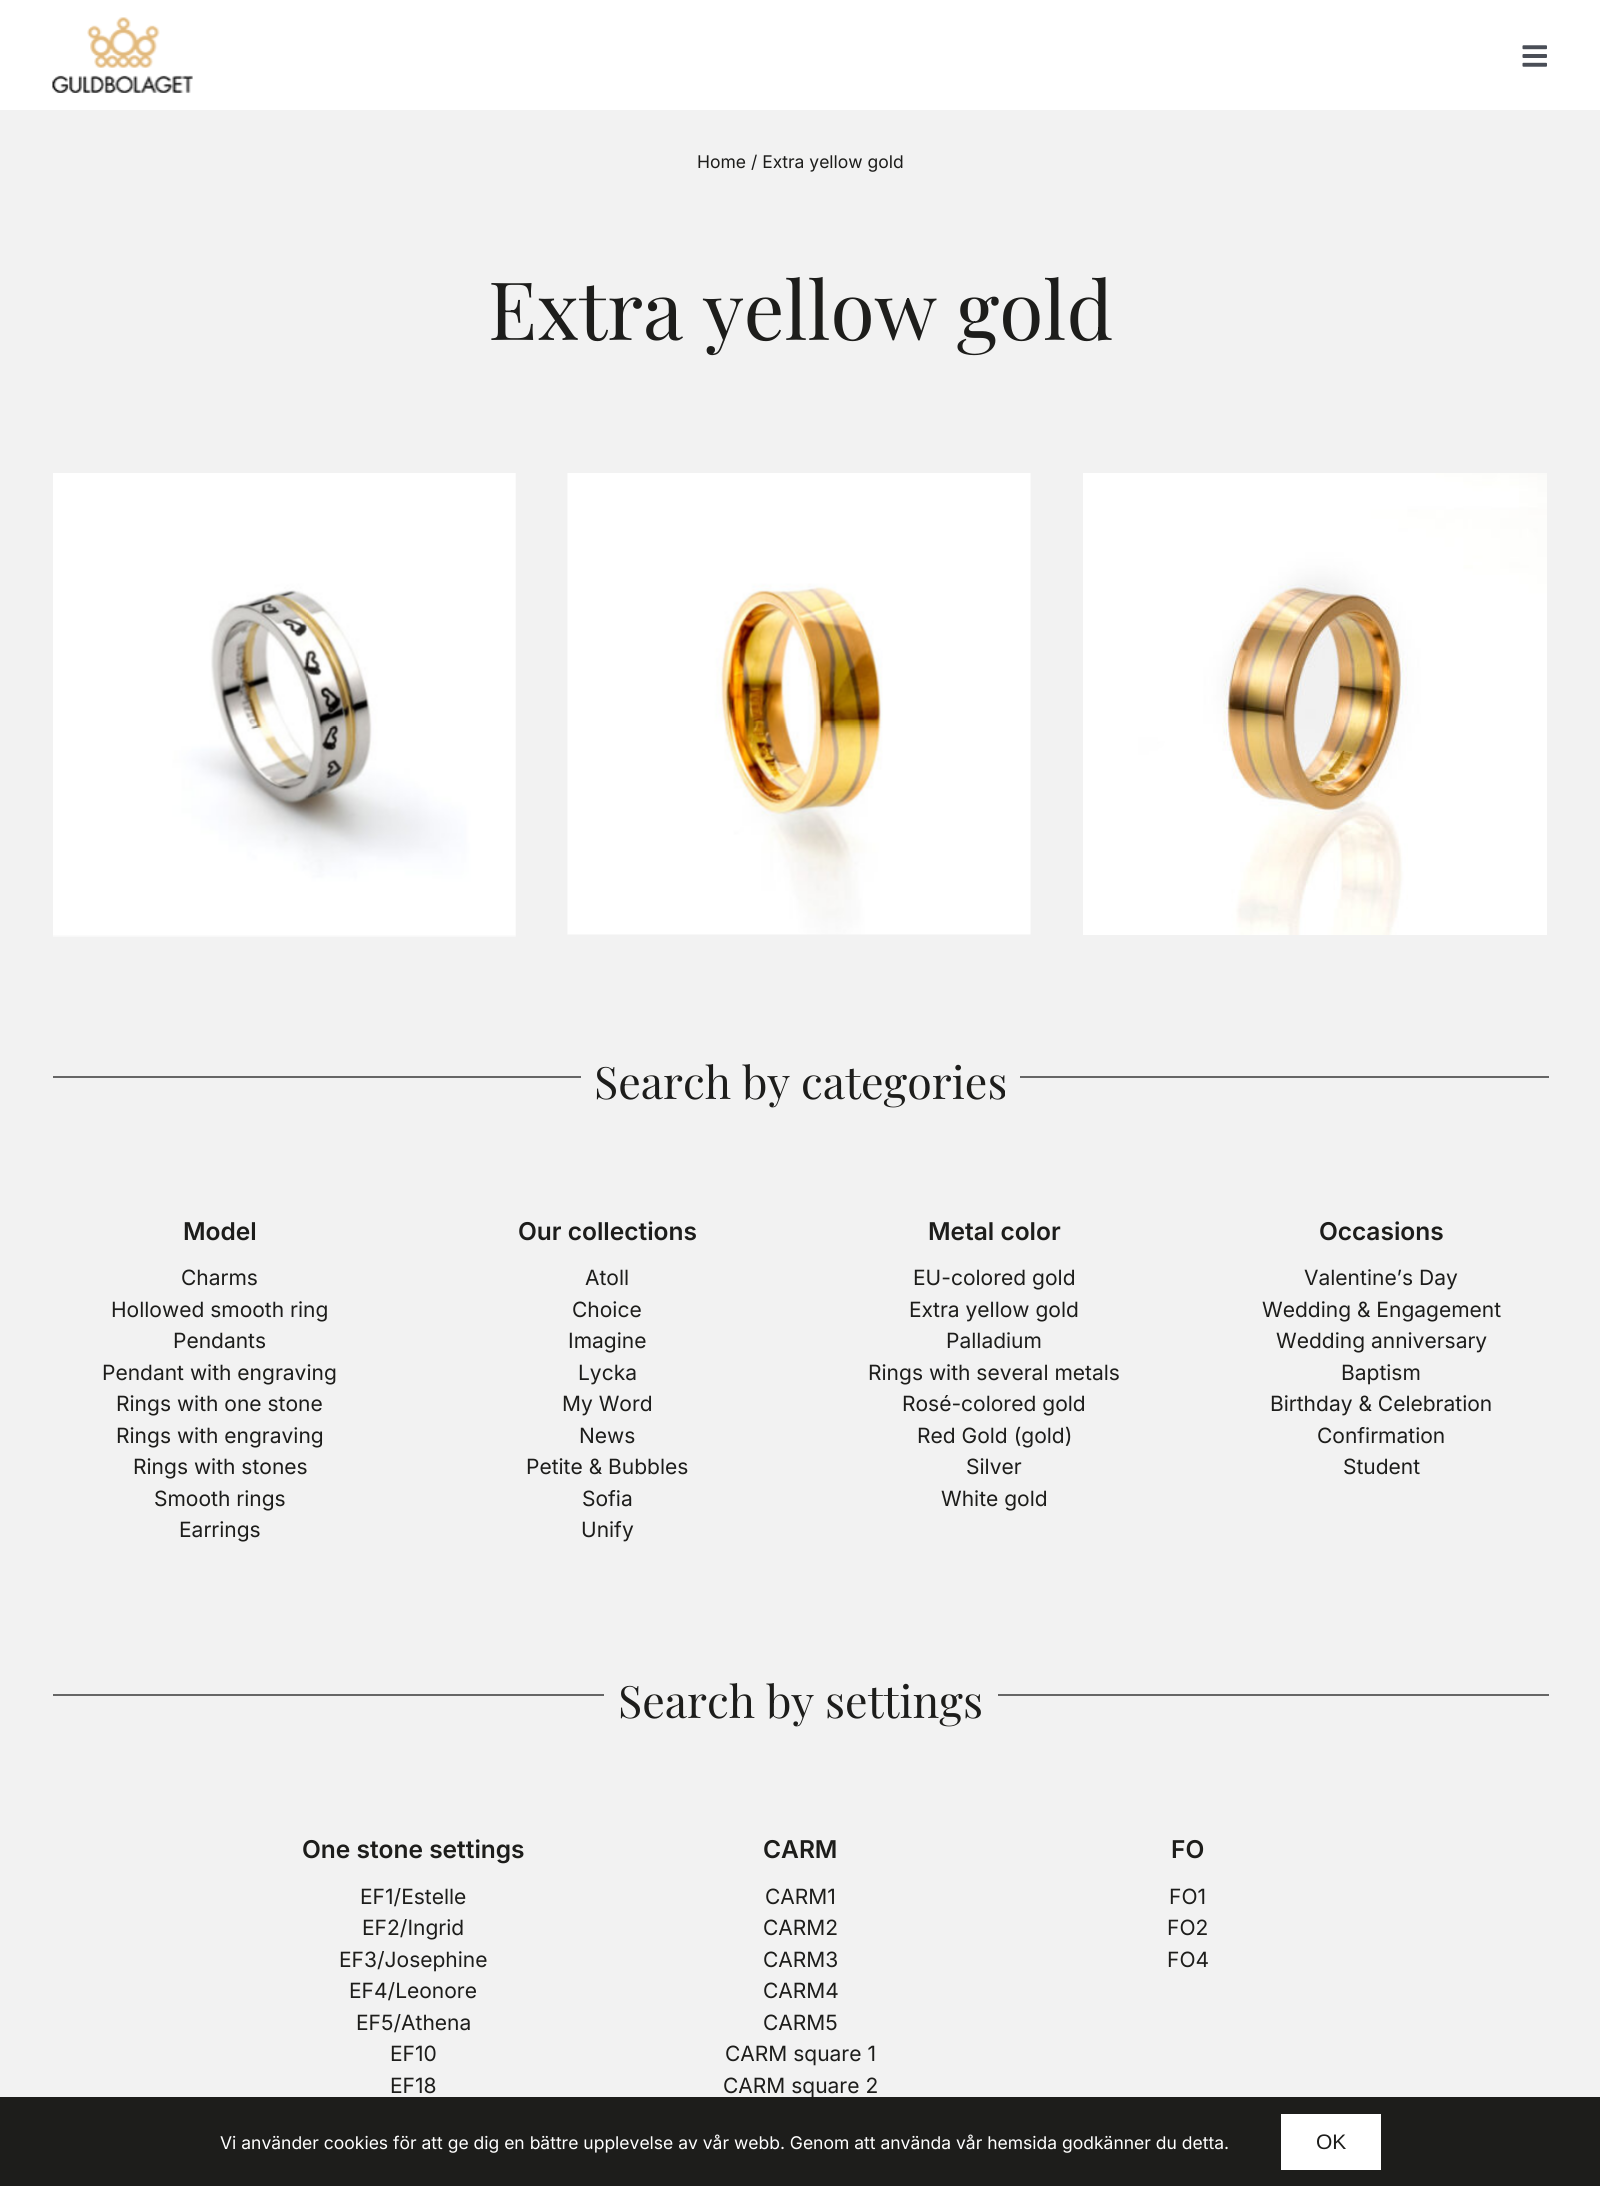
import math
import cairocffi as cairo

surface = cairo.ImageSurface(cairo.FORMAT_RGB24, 1600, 2186)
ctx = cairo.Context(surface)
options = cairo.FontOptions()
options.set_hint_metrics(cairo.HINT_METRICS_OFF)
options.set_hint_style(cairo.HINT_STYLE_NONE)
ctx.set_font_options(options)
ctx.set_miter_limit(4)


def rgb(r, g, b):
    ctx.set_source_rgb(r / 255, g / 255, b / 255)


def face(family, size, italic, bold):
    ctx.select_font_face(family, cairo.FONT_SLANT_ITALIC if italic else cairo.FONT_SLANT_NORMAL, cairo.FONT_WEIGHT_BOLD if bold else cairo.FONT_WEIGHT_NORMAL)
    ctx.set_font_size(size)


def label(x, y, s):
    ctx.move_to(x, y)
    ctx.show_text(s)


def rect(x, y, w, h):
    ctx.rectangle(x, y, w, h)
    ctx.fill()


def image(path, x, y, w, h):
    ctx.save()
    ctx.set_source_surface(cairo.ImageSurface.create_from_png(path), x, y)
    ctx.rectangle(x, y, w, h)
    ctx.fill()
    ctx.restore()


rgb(242, 242, 242)
ctx.paint()
rgb(255, 255, 255)
rect(0, 0, 1600, 110)
image('image0.png', 52, 17, 141, 76)
image('image1.png', 1522, 45, 25, 22)
face('Inter', 17.5, 0, 0)
rgb(29, 29, 27)
label(697, 168, 'Home / Extra yellow gold')
face('Playfair Display', 80.5, 0, 0)
label(488, 340, 'Extra yellow gold')
image('image2.png', 53, 473, 463, 464)
image('image3.png', 567, 473, 464, 462)
image('image4.png', 1083, 473, 464, 462)
rgb(102, 102, 102)
rect(53, 1076, 528, 2)
face('Playfair Display', 44.75, 0, 0)
rgb(29, 29, 27)
label(594, 1099, 'Search by categories')
rgb(102, 102, 102)
rect(1020, 1076, 529, 2)
face('Inter SemiBold', 24.5, 0, 0)
rgb(29, 29, 27)
label(183, 1240, 'Model')
face('Inter', 21, 0, 0)
label(181, 1285, 'Charms')
label(111, 1317, 'Hollowed smooth ring')
label(173, 1348, 'Pendants')
label(102, 1380, 'Pendant with engraving')
label(116, 1411, 'Rings with one stone')
label(116, 1443, 'Rings with engraving')
label(133, 1474, 'Rings with stones')
label(154, 1506, 'Smooth rings')
label(179, 1537, 'Earrings')
face('Inter SemiBold', 24.5, 0, 0)
label(518, 1240, 'Our collections')
face('Inter', 21, 0, 0)
label(585, 1285, 'Atoll')
label(572, 1317, 'Choice')
label(568, 1348, 'Imagine')
label(578, 1380, 'Lycka')
label(562, 1411, 'My Word')
label(579, 1443, 'News')
label(526, 1474, 'Petite & Bubbles')
label(582, 1506, 'Sofia')
label(581, 1537, 'Unify')
face('Inter SemiBold', 24.5, 0, 0)
label(928, 1240, 'Metal color')
face('Inter', 21, 0, 0)
label(913, 1285, 'EU-colored gold')
label(909, 1317, 'Extra yellow gold')
label(946, 1348, 'Palladium')
label(868, 1380, 'Rings with several metals')
label(902, 1411, 'Rosé-colored gold')
label(917, 1443, 'Red Gold (gold)')
label(966, 1474, 'Silver')
label(941, 1506, 'White gold')
face('Inter SemiBold', 24.5, 0, 0)
label(1319, 1240, 'Occasions')
face('Inter', 21, 0, 0)
label(1304, 1285, 'Valentine’s Day')
label(1262, 1317, 'Wedding & Engagement')
label(1276, 1348, 'Wedding anniversary')
label(1341, 1380, 'Baptism')
label(1270, 1411, 'Birthday & Celebration')
label(1317, 1443, 'Confirmation')
label(1343, 1474, 'Student')
rgb(102, 102, 102)
rect(53, 1694, 551, 2)
face('Playfair Display', 44.75, 0, 0)
rgb(29, 29, 27)
label(618, 1718, 'Search by settings')
rgb(102, 102, 102)
rect(998, 1694, 551, 2)
face('Inter SemiBold', 24.5, 0, 0)
rgb(29, 29, 27)
label(302, 1858, 'One stone settings')
face('Inter', 21, 0, 0)
label(360, 1904, 'EF1/Estelle')
label(362, 1935, 'EF2/Ingrid')
label(339, 1967, 'EF3/Josephine')
label(349, 1998, 'EF4/Leonore')
label(356, 2030, 'EF5/Athena')
label(390, 2061, 'EF10')
label(390, 2093, 'EF18')
face('Inter SemiBold', 24.5, 0, 0)
label(763, 1858, 'CARM')
face('Inter', 21, 0, 0)
label(765, 1904, 'CARM1')
label(763, 1935, 'CARM2')
label(763, 1967, 'CARM3')
label(763, 1998, 'CARM4')
label(763, 2030, 'CARM5')
label(725, 2061, 'CARM square 1')
label(723, 2093, 'CARM square 2')
face('Inter SemiBold', 24.5, 0, 0)
label(1171, 1858, 'FO')
face('Inter', 21, 0, 0)
label(1169, 1904, 'FO1')
label(1167, 1935, 'FO2')
label(1167, 1967, 'FO4')
rect(0, 2097, 1600, 89)
face('Inter', 17.5, 0, 0)
rgb(255, 255, 255)
label(220, 2149, 'Vi använder cookies för att ge dig en bättre upplevelse av vår webb. Genom att använda vår hemsida godkänner du detta.')
rect(1281, 2114, 100, 56)
face('Liberation Sans', 21, 0, 0)
rgb(29, 29, 27)
label(1316, 2149, 'OK')
surface.write_to_png('render.png')
